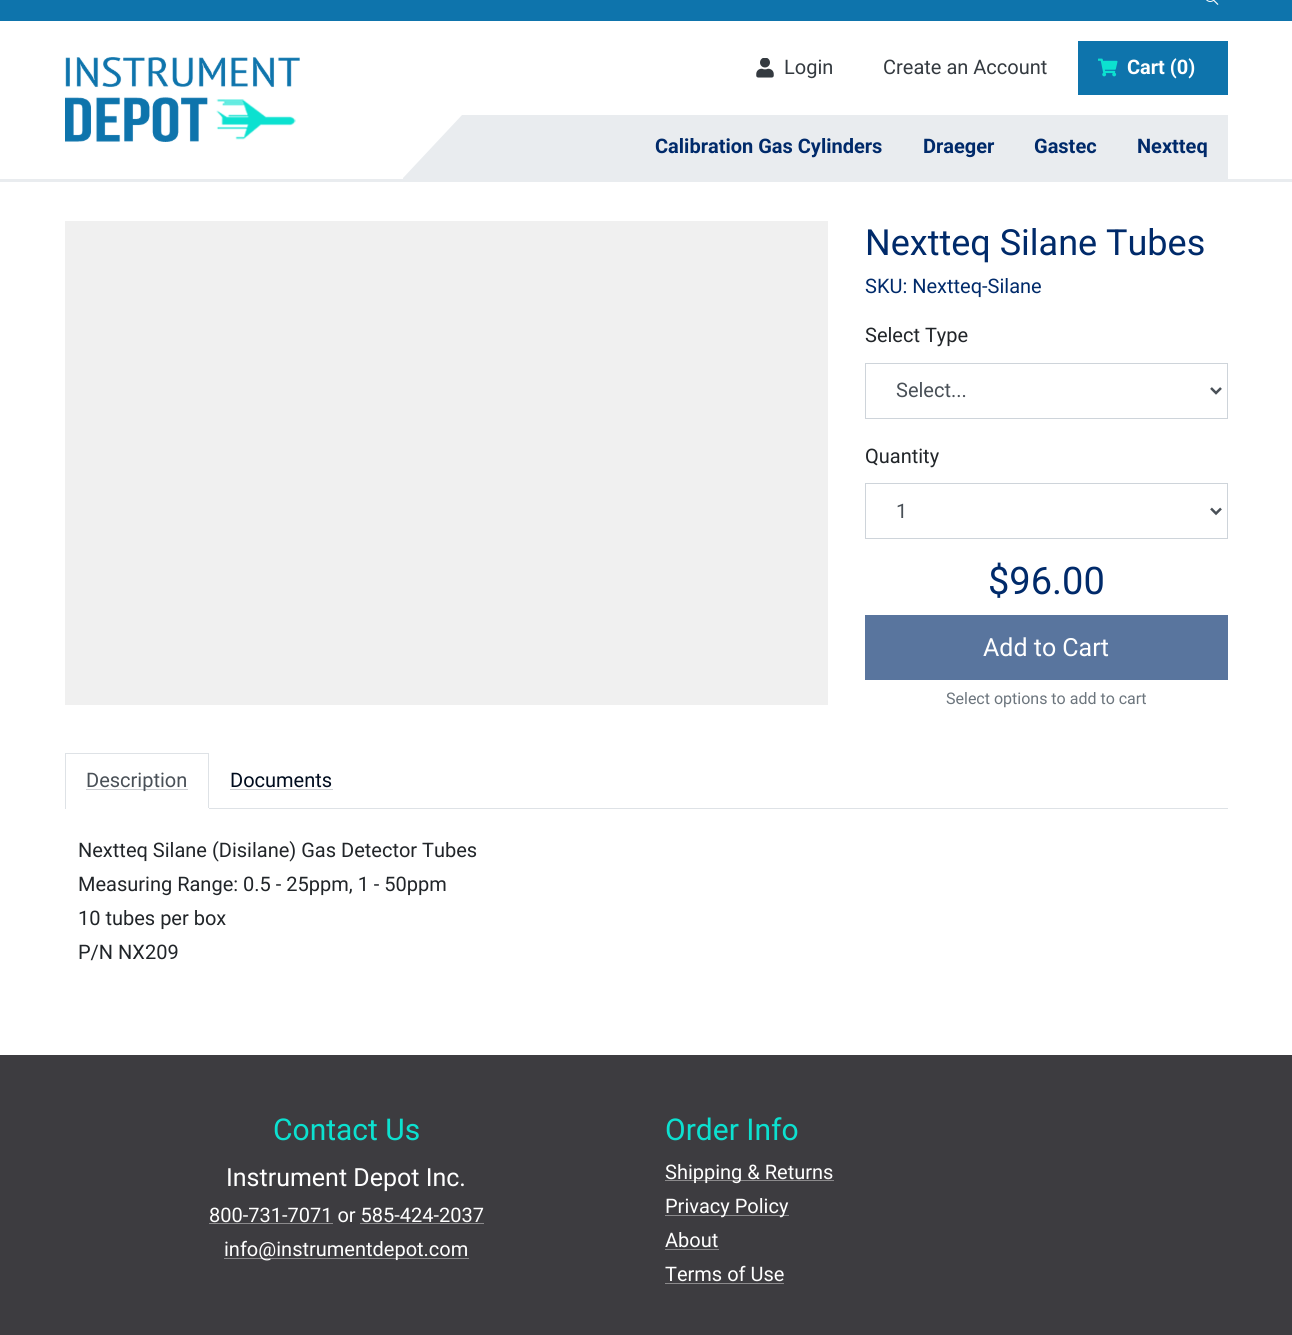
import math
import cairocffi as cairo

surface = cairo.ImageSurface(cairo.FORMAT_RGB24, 1292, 1335)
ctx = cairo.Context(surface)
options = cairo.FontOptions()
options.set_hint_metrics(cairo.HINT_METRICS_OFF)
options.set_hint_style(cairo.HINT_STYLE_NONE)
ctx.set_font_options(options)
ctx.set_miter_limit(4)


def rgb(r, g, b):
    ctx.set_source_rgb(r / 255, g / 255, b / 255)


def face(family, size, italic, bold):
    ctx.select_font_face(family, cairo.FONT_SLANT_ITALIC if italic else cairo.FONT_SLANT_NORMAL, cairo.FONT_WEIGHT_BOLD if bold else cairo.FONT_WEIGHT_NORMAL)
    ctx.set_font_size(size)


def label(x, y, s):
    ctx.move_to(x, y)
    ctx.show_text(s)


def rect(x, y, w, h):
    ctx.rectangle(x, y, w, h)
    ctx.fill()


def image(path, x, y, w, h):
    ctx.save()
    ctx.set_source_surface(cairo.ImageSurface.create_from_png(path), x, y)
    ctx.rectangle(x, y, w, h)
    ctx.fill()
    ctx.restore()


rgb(255, 255, 255)
ctx.paint()
rgb(233, 236, 239)
rect(0, 179, 1292, 3)
rgb(14, 116, 172)
rect(0, 0, 1292, 21)
image('image0.png', 1206, 0, 13, 5)
image('image1.png', 65, 57, 235, 85)
image('image2.png', 756, 58, 18, 20)
face('Roboto', 20, 0, 0)
rgb(52, 58, 64)
label(784, 74, 'Login')
label(883, 74, 'Create an Account')
rgb(14, 116, 172)
rect(1078, 41, 150, 54)
image('image3.png', 1098, 58, 20, 19)
face('Roboto', 20, 0, 1)
rgb(255, 255, 255)
label(1127, 74, 'Cart (0)')
rgb(233, 236, 239)
ctx.new_path()
ctx.move_to(403, 178)
ctx.line_to(462, 115)
ctx.line_to(1228, 115)
ctx.line_to(1228, 179)
ctx.line_to(403, 179)
ctx.close_path()
ctx.fill()
rgb(0, 42, 106)
label(655, 153, 'Calibration Gas Cylinders')
label(923, 153, 'Draeger')
label(1034, 153, 'Gastec')
label(1137, 153, 'Nextteq')
rgb(240, 240, 240)
rect(65, 221, 763, 484)
face('Roboto', 36, 0, 0)
rgb(0, 42, 106)
label(865, 255, 'Nextteq Silane Tubes')
face('Roboto', 20, 0, 0)
label(865, 293, 'SKU: Nextteq-Silane')
rgb(33, 37, 41)
label(865, 342, 'Select Type')
ctx.rectangle(865.5, 363.5, 362, 55)
rgb(206, 212, 218)
ctx.set_line_width(1)
ctx.stroke()
ctx.new_path()
ctx.move_to(1211, 388)
ctx.line_to(1216, 393)
ctx.line_to(1221, 388)
rgb(73, 80, 87)
ctx.set_line_width(2.5)
ctx.stroke()
label(896, 397, 'Select...')
rgb(33, 37, 41)
label(865, 463, 'Quantity')
ctx.rectangle(865.5, 483.5, 362, 55)
rgb(206, 212, 218)
ctx.set_line_width(1)
ctx.stroke()
ctx.new_path()
ctx.move_to(1211, 508.5)
ctx.line_to(1216, 513.5)
ctx.line_to(1221, 508.5)
rgb(73, 80, 87)
ctx.set_line_width(2.5)
ctx.stroke()
label(896, 518, '1')
face('Roboto', 38, 0, 0)
rgb(0, 42, 106)
label(988, 594, '$96.00')
rgb(89, 117, 158)
rect(865, 615, 363, 65)
face('Roboto', 25, 0, 0)
rgb(255, 255, 255)
label(983, 656, 'Add to Cart')
face('Roboto', 16, 0, 0)
rgb(108, 117, 125)
label(946, 704, 'Select options to add to cart')
rgb(222, 226, 230)
rect(209, 808, 1019, 1)
rect(65, 753, 144, 1)
rect(208, 753, 1, 56)
rgb(255, 255, 255)
rect(208, 808, 1, 1)
rgb(222, 226, 230)
rect(65, 753, 1, 56)
rgb(204, 206, 210)
rect(86, 789, 102, 1)
face('Roboto', 20, 0, 0)
rgb(73, 80, 87)
label(86, 787, 'Description')
rgb(0, 12, 30)
label(230, 787, 'Documents')
rgb(204, 206, 210)
rect(230, 789, 103, 1)
rgb(33, 37, 41)
label(78, 857, 'Nextteq Silane (Disilane) Gas Detector Tubes')
label(78, 891, 'Measuring Range: 0.5 - 25ppm, 1 - 50ppm')
label(78, 925, '10 tubes per box')
label(78, 959, 'P/N NX209')
rgb(61, 60, 64)
rect(0, 1055, 1292, 280)
face('Roboto', 30, 0, 0)
rgb(12, 225, 208)
label(273, 1140, 'Contact Us')
face('Roboto', 25, 0, 0)
rgb(255, 255, 255)
label(226, 1186, 'Instrument Depot Inc.')
face('Roboto', 20, 0, 0)
label(209, 1222, '800-731-7071 or 585-424-2037')
rgb(139, 138, 140)
rect(209, 1223, 124, 1)
rect(360, 1223, 124, 1)
rect(224, 1258, 245, 1)
rgb(255, 255, 255)
label(224, 1256, 'info@instrumentdepot.com')
face('Roboto', 30, 0, 0)
rgb(12, 225, 208)
label(665, 1140, 'Order Info')
rgb(139, 138, 140)
rect(665, 1180, 169, 1)
face('Roboto', 20, 0, 0)
rgb(255, 255, 255)
label(665, 1179, 'Shipping & Returns')
rgb(139, 138, 140)
rect(665, 1215, 124, 1)
rgb(255, 255, 255)
label(665, 1213, 'Privacy Policy')
label(665, 1247, 'About')
rgb(139, 138, 140)
rect(665, 1249, 54, 1)
rgb(255, 255, 255)
label(665, 1281, 'Terms of Use')
rgb(139, 138, 140)
rect(665, 1283, 119, 1)
surface.write_to_png('render.png')
